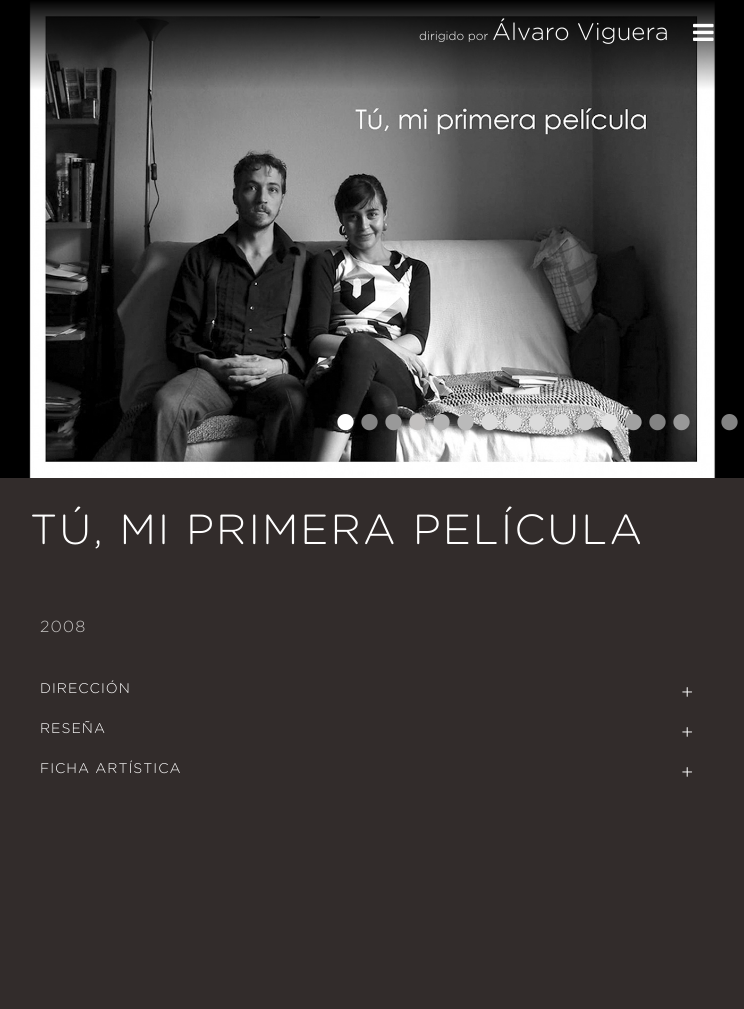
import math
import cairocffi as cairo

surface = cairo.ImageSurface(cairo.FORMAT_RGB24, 744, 1009)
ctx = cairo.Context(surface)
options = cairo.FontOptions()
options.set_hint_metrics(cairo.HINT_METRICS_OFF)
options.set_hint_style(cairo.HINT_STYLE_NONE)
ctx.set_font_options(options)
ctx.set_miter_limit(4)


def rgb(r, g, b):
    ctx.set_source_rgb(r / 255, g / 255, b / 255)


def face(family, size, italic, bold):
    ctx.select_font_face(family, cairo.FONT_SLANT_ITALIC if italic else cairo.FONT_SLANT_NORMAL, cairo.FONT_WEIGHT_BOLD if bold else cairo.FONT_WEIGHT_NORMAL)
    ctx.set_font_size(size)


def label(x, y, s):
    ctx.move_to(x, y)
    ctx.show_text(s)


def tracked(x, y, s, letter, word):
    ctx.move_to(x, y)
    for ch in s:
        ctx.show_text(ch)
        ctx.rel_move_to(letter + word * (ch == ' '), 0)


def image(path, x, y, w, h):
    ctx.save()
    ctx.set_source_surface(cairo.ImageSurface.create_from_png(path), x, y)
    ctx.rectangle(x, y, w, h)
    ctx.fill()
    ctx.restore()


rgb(50, 44, 43)
ctx.paint()
image('image1.png', 0, 0, 744, 478)
face('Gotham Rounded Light', 12, 0, 0)
rgb(255, 255, 255)
label(419, 40, 'dirigido por')
face('Gotham Rounded Light', 24, 0, 0)
label(492, 40, 'Álvaro Viguera')
image('image0.png', 693, 23, 21, 18)
face('Liberation Sans', 60, 0, 0)
label(335, 442, '•')
rgb(131, 131, 131)
label(359, 442, '•')
rgb(153, 153, 153)
label(383, 442, '•')
rgb(194, 192, 191)
label(407, 442, '•')
rgb(179, 179, 179)
label(431, 442, '•')
rgb(186, 186, 186)
label(455, 442, '•')
rgb(219, 219, 219)
label(479, 442, '•')
label(503, 442, '•')
label(527, 442, '•')
label(551, 442, '•')
rgb(204, 204, 204)
label(575, 442, '•')
rgb(226, 226, 226)
label(599, 442, '•')
rgb(161, 161, 161)
label(623, 442, '•')
rgb(131, 131, 131)
label(647, 442, '•')
rgb(153, 153, 153)
label(671, 442, '•')
rgb(131, 131, 131)
label(719, 442, '•')
face('Gotham Rounded Light', 42, 0, 0)
rgb(255, 255, 255)
tracked(30, 544, 'TÚ, MI PRIMERA PELÍCULA', 2, 0)
face('Gotham Rounded Light', 16, 0, 0)
rgb(194, 192, 191)
tracked(40, 632, '2008', 1, 0)
face('Gotham Rounded Light', 14, 0, 0)
rgb(255, 255, 255)
tracked(40, 693, 'DIRECCIÓN', 1, 0)
face('Gotham Rounded Light', 20, 0, 0)
tracked(681, 699, '+', 1, 0)
face('Gotham Rounded Light', 14, 0, 0)
tracked(40, 733, 'RESEÑA', 1, 0)
face('Gotham Rounded Light', 20, 0, 0)
tracked(681, 739, '+', 1, 0)
face('Gotham Rounded Light', 14, 0, 0)
tracked(40, 773, 'FICHA ARTÍSTICA', 1, 0)
face('Gotham Rounded Light', 20, 0, 0)
tracked(681, 779, '+', 1, 0)
surface.write_to_png('render.png')
